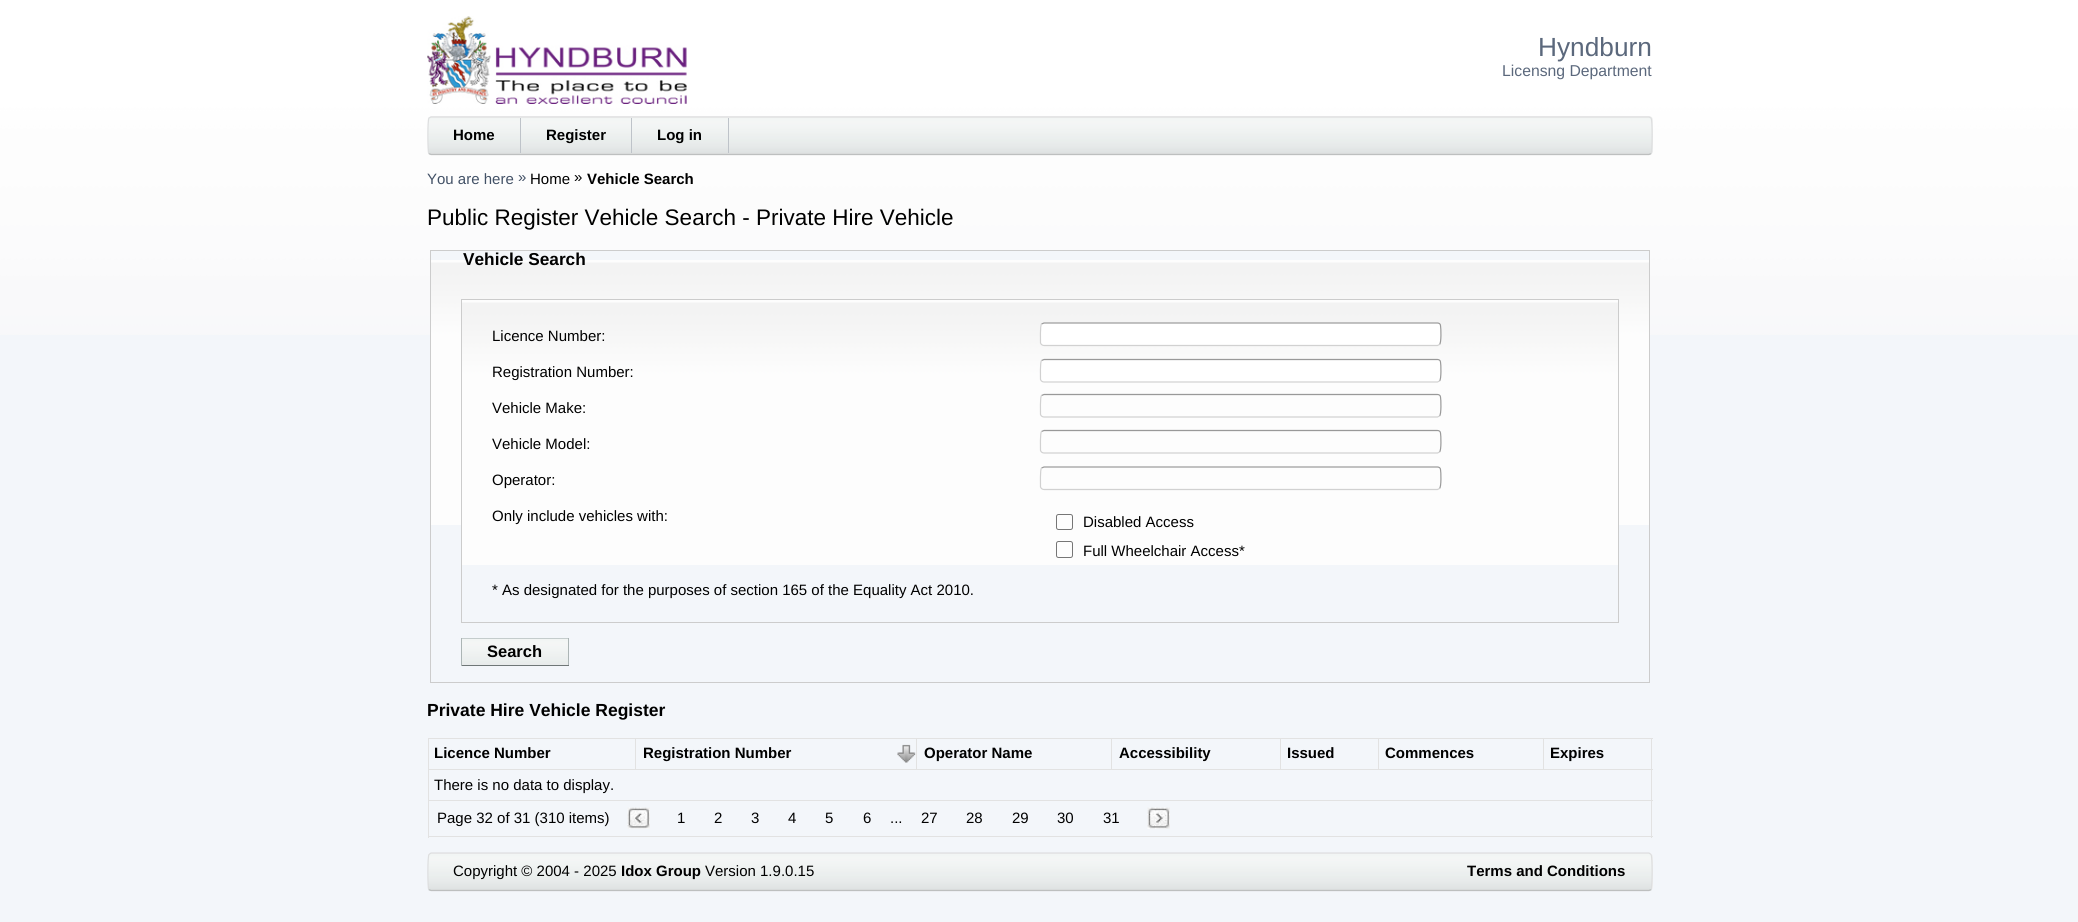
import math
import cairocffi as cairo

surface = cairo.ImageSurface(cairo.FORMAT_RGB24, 2078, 922)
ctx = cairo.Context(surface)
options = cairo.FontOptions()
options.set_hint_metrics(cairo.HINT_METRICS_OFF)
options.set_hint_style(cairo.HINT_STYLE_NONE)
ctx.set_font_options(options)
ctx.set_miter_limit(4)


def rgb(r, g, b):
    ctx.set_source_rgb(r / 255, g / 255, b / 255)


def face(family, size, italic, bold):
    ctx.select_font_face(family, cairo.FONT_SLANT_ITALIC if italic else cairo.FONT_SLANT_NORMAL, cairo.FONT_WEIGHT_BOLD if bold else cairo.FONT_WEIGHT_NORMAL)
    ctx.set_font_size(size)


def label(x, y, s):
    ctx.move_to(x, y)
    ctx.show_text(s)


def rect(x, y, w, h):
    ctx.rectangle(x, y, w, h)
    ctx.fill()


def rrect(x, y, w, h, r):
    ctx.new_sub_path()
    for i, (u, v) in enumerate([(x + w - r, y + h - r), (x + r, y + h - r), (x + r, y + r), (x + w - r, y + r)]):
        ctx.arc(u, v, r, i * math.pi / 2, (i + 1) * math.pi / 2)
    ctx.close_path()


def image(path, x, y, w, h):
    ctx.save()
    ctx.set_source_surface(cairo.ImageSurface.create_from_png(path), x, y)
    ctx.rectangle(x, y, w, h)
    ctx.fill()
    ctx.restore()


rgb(243, 246, 250)
ctx.paint()
image('image0.png', 0, 0, 2078, 335)
image('image1.png', 427, 16, 260, 88)
face('Liberation Sans', 26.25, 0, 0)
rgb(91, 104, 124)
label(1538, 56, 'Hyndburn')
face('Liberation Sans', 15.75, 0, 0)
label(1502, 76, 'Licensng Department')
rgb(239, 239, 239)
rrect(428, 116, 1225, 39, 4)
ctx.fill()
image('image2.png', 427, 117, 1226, 38)
ctx.new_path()
ctx.move_to(1651, 153.5)
ctx.line_to(1649, 154.5)
ctx.line_to(431, 154.5)
ctx.line_to(429, 153.5)
rgb(189, 191, 191)
ctx.set_line_width(1.2)
ctx.stroke()
ctx.new_path()
ctx.move_to(429, 153.5)
ctx.curve_to(427.5, 151.5, 427.5, 119.5, 429, 118)
ctx.line_to(431, 117)
ctx.line_to(1649, 117)
ctx.line_to(1651, 118)
ctx.curve_to(1652.5, 119.5, 1652.5, 151.5, 1651, 153.5)
rgb(221, 222, 223)
ctx.stroke()
rgb(190, 195, 201)
rect(520, 118, 1, 35)
face('Liberation Sans', 15, 0, 1)
rgb(0, 0, 0)
label(453, 140, 'Home')
rgb(190, 195, 201)
rect(631, 118, 1, 35)
rgb(0, 0, 0)
label(546, 140, 'Register')
rgb(190, 195, 201)
rect(728, 118, 1, 35)
rgb(0, 0, 0)
label(657, 140, 'Log in')
face('Liberation Sans', 15, 0, 0)
rgb(66, 81, 102)
label(427, 184, 'You are here')
label(518, 182, '»')
rgb(0, 0, 0)
label(530, 184, 'Home')
label(574, 182, '»')
face('Liberation Sans', 15, 0, 1)
label(587, 184, 'Vehicle Search')
face('Liberation Sans', 22.5, 0, 0)
label(427, 225, 'Public Register Vehicle Search - Private Hire Vehicle')
rgb(243, 246, 250)
rect(431, 251, 1218, 84)
image('image3.png', 431, 260, 1218, 265)
ctx.rectangle(430.5, 250.5, 1219, 432)
rgb(204, 204, 204)
ctx.set_line_width(1)
ctx.stroke()
face('Liberation Sans', 17.25, 0, 1)
rgb(0, 0, 0)
label(463, 265, 'Vehicle Search')
image('image4.png', 462, 300, 1156, 265)
ctx.rectangle(461.5, 299.5, 1157, 323)
rgb(204, 204, 204)
ctx.stroke()
face('Liberation Sans', 15, 0, 0)
rgb(0, 0, 0)
label(492, 341, 'Licence Number:')
rgb(255, 255, 255)
rrect(1040, 323, 401, 23, 4)
ctx.fill()
ctx.new_path()
ctx.move_to(1041.5, 324)
ctx.line_to(1044, 323)
ctx.line_to(1437.5, 323)
ctx.curve_to(1439, 323, 1440.5, 324, 1440.5, 325.5)
ctx.curve_to(1441, 328, 1441.5, 343, 1439.5, 344.5)
rgb(153, 153, 153)
ctx.set_line_width(1.2)
ctx.stroke()
ctx.new_path()
ctx.move_to(1439.5, 344.5)
ctx.line_to(1437.5, 345.5)
ctx.line_to(1044, 345.5)
ctx.curve_to(1042.5, 345.5, 1041, 344.5, 1040.5, 343)
ctx.curve_to(1040.5, 341, 1040, 325.5, 1041.5, 324)
rgb(209, 209, 209)
ctx.stroke()
rgb(0, 0, 0)
label(492, 377, 'Registration Number:')
rgb(255, 255, 255)
rrect(1040, 359, 401, 24, 4)
ctx.fill()
ctx.new_path()
ctx.move_to(1041.5, 360.5)
ctx.line_to(1044, 359.5)
ctx.line_to(1437.5, 359.5)
ctx.curve_to(1439, 359.5, 1440.5, 360.5, 1440.5, 362)
ctx.curve_to(1441, 364, 1441.5, 379.5, 1439.5, 381)
rgb(153, 153, 153)
ctx.stroke()
ctx.new_path()
ctx.move_to(1439.5, 381)
ctx.line_to(1437.5, 382)
ctx.line_to(1044, 382)
ctx.curve_to(1042.5, 382, 1041, 381, 1040.5, 379.5)
ctx.curve_to(1040.5, 377, 1040, 362, 1041.5, 360.5)
rgb(209, 209, 209)
ctx.stroke()
rgb(0, 0, 0)
label(492, 413, 'Vehicle Make:')
ctx.new_path()
ctx.move_to(1041.5, 395.5)
ctx.line_to(1044, 394.5)
ctx.line_to(1437.5, 394.5)
ctx.curve_to(1439, 394.5, 1440.5, 395.5, 1440.5, 397)
ctx.curve_to(1441, 399, 1441.5, 414.5, 1439.5, 416)
rgb(153, 153, 153)
ctx.stroke()
ctx.new_path()
ctx.move_to(1439.5, 416)
ctx.line_to(1437.5, 417)
ctx.line_to(1044, 417)
ctx.curve_to(1042.5, 417, 1041, 416, 1040.5, 414.5)
ctx.curve_to(1040.5, 412, 1040, 397, 1041.5, 395.5)
rgb(209, 209, 209)
ctx.stroke()
rgb(0, 0, 0)
label(492, 449, 'Vehicle Model:')
ctx.new_path()
ctx.move_to(1041.5, 431.5)
ctx.line_to(1044, 430.5)
ctx.line_to(1437.5, 430.5)
ctx.curve_to(1439, 430.5, 1440.5, 431.5, 1440.5, 433)
ctx.curve_to(1441, 435.5, 1441.5, 450.5, 1439.5, 452)
rgb(153, 153, 153)
ctx.stroke()
ctx.new_path()
ctx.move_to(1439.5, 452)
ctx.line_to(1437.5, 453)
ctx.line_to(1044, 453)
ctx.curve_to(1042.5, 453, 1041, 452, 1040.5, 450.5)
ctx.curve_to(1040.5, 448.5, 1040, 433, 1041.5, 431.5)
rgb(209, 209, 209)
ctx.stroke()
rgb(0, 0, 0)
label(492, 485, 'Operator:')
ctx.new_path()
ctx.move_to(1041.5, 468)
ctx.line_to(1044, 467)
ctx.line_to(1437.5, 467)
ctx.curve_to(1439, 467, 1440.5, 468, 1440.5, 469.5)
ctx.curve_to(1441, 471.5, 1441.5, 487, 1439.5, 488.5)
rgb(153, 153, 153)
ctx.stroke()
ctx.new_path()
ctx.move_to(1439.5, 488.5)
ctx.line_to(1437.5, 489.5)
ctx.line_to(1044, 489.5)
ctx.curve_to(1042.5, 489.5, 1041, 488.5, 1040.5, 487)
ctx.curve_to(1040.5, 484.5, 1040, 469.5, 1041.5, 468)
rgb(209, 209, 209)
ctx.stroke()
rgb(0, 0, 0)
label(492, 521, 'Only include vehicles with:')
rrect(1056.5, 514.5, 16, 15, 2)
rgb(118, 118, 118)
ctx.set_line_width(1)
ctx.stroke()
rgb(0, 0, 0)
label(1083, 527, 'Disabled Access')
rrect(1056.5, 541.5, 16, 16, 2)
rgb(118, 118, 118)
ctx.stroke()
rgb(0, 0, 0)
label(1083, 556, 'Full Wheelchair Access*')
label(492, 595, '* As designated for the purposes of section 165 of the Equality Act 2010.')
image('image5.png', 462, 639, 106, 26)
rgb(196, 204, 204)
rect(461, 638, 108, 1)
rgb(172, 181, 181)
rect(568, 638, 1, 28)
rgb(111, 119, 119)
rect(461, 665, 108, 1)
rgb(172, 181, 181)
rect(461, 638, 1, 28)
face('Liberation Sans', 16.5, 0, 1)
rgb(0, 0, 0)
label(487, 657, 'Search')
face('Liberation Sans', 17.5, 0, 1)
label(427, 716, 'Private Hire Vehicle Register')
rgb(226, 226, 226)
rect(1543, 738, 110, 1)
rect(428, 769, 1225, 1)
rect(1543, 738, 1, 32)
rect(1378, 738, 166, 1)
rect(1378, 738, 1, 32)
rect(1280, 738, 99, 1)
rect(1280, 738, 1, 32)
rect(1111, 738, 170, 1)
rect(1111, 738, 1, 32)
rect(916, 738, 197, 1)
rect(916, 738, 1, 32)
rect(635, 738, 283, 1)
rect(635, 738, 1, 32)
rect(428, 738, 208, 1)
rect(1651, 769, 1, 69)
rect(428, 800, 1225, 1)
rect(428, 769, 1, 32)
rect(428, 738, 1, 32)
face('Liberation Sans', 15, 0, 1)
rgb(0, 0, 0)
label(434, 758, 'Licence Number')
image('image6.png', 897, 744, 19, 19)
label(643, 758, 'Registration Number')
label(924, 758, 'Operator Name')
label(1119, 758, 'Accessibility')
label(1287, 758, 'Issued')
label(1385, 758, 'Commences')
rgb(226, 226, 226)
rect(1651, 738, 1, 32)
rgb(0, 0, 0)
label(1550, 758, 'Expires')
face('Liberation Sans', 15, 0, 0)
label(434, 790, 'There is no data to display.')
rgb(226, 226, 226)
rect(428, 836, 1225, 1)
rect(428, 801, 1, 37)
rgb(0, 0, 0)
label(437, 823, 'Page 32 of 31 (310 items)')
image('image7.png', 627, 807, 23, 22)
label(677, 823, '1')
label(714, 823, '2')
label(751, 823, '3')
label(788, 823, '4')
label(825, 823, '5')
label(863, 823, '6')
label(890, 823, '...')
label(921, 823, '27')
label(966, 823, '28')
label(1012, 823, '29')
label(1057, 823, '30')
label(1103, 823, '31')
image('image8.png', 1147, 807, 23, 22)
rgb(239, 239, 239)
rrect(428, 853, 1225, 38, 4)
ctx.fill()
image('image9.png', 427, 854, 1225, 37)
ctx.new_path()
ctx.move_to(1651, 889.5)
ctx.line_to(1649, 890.5)
ctx.line_to(431, 890.5)
ctx.line_to(429, 889.5)
rgb(189, 191, 191)
ctx.set_line_width(1.2)
ctx.stroke()
ctx.new_path()
ctx.move_to(429, 889.5)
ctx.curve_to(427.5, 888, 427.5, 856, 429, 854.5)
ctx.line_to(431, 853)
ctx.line_to(1649, 853)
ctx.line_to(1651, 854.5)
ctx.curve_to(1652.5, 856, 1652.5, 888, 1651, 889.5)
rgb(221, 222, 223)
ctx.stroke()
rgb(0, 0, 0)
label(453, 876, 'Copyright © 2004 - 2025')
face('Liberation Sans', 15, 0, 1)
label(621, 876, 'Idox Group')
face('Liberation Sans', 15, 0, 0)
label(705, 876, 'Version 1.9.0.15')
face('Liberation Sans', 15, 0, 1)
label(1467, 876, 'Terms and Conditions')
surface.write_to_png('render.png')
